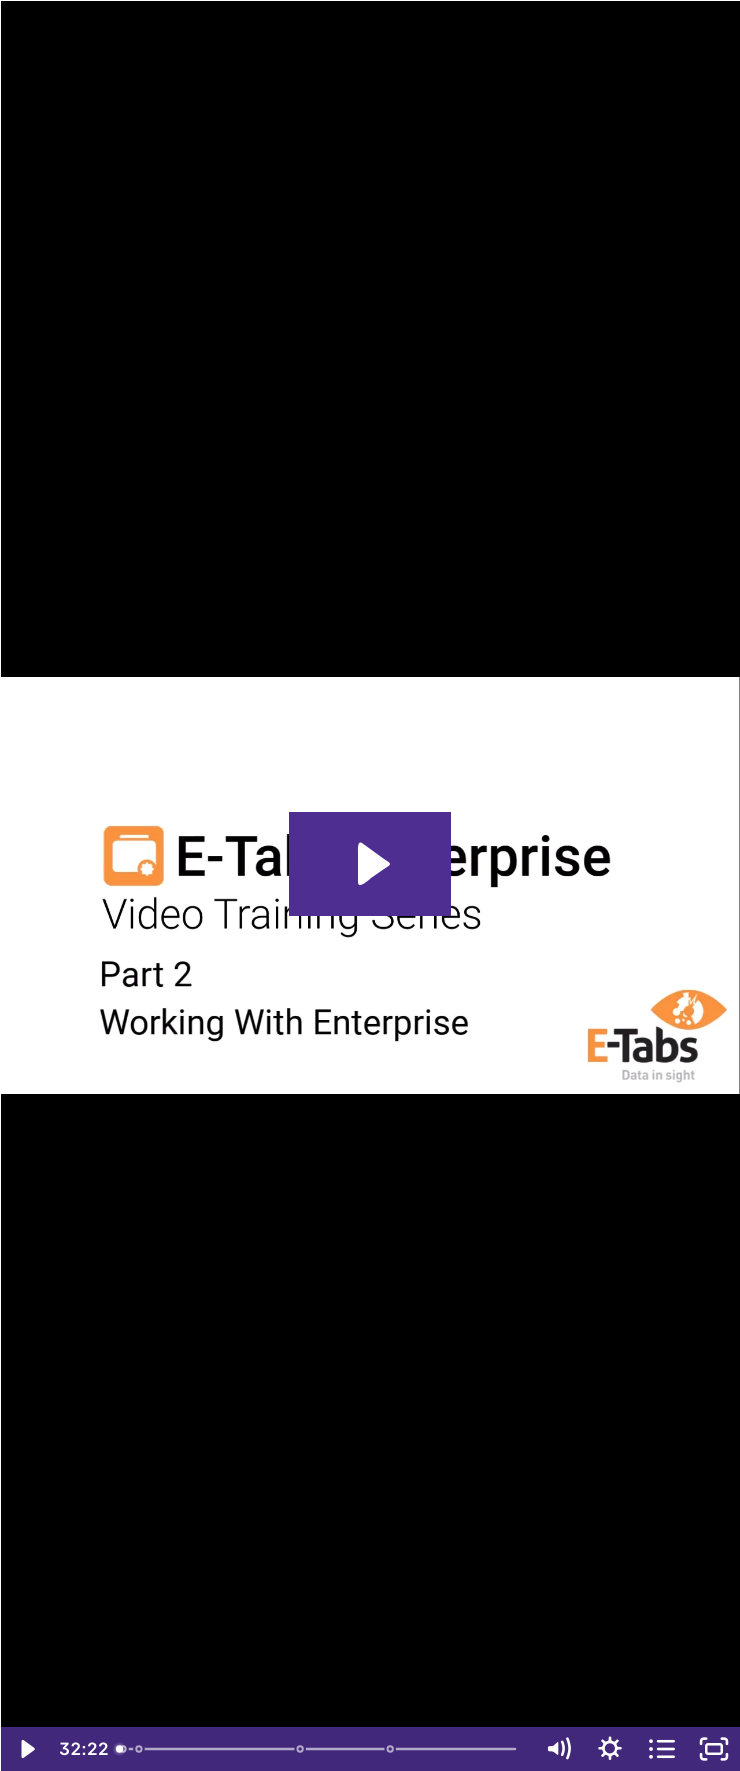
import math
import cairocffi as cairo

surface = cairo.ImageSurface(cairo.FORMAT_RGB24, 740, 1771)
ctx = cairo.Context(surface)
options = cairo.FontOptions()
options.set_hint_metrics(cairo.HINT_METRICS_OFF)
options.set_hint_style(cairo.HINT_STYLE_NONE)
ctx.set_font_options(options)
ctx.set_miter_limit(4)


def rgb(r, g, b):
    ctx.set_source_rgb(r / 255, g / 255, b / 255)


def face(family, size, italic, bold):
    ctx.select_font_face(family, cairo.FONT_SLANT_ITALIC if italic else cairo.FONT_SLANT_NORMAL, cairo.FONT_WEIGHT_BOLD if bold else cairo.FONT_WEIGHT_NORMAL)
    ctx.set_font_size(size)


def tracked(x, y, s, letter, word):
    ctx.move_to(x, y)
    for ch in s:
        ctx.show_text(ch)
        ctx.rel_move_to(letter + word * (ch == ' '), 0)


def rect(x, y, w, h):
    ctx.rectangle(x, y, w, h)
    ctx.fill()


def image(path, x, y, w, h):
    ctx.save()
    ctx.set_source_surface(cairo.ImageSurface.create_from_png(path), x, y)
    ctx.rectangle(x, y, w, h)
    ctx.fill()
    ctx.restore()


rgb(255, 255, 255)
ctx.paint()
rgb(0, 0, 0)
rect(1, 1, 739, 1726)
image('image0.png', 1, 677, 739, 417)
rgb(78, 47, 145)
rect(289, 812, 162, 104)
rgb(255, 255, 255)
ctx.set_fill_rule(cairo.FILL_RULE_EVEN_ODD)
ctx.new_path()
ctx.move_to(362, 843)
ctx.curve_to(357, 840, 358, 851, 358, 852)
ctx.line_to(358, 883)
ctx.line_to(359, 885)
ctx.curve_to(362, 886, 369, 880, 371, 878)
ctx.line_to(384, 869)
ctx.curve_to(392, 864, 392, 864, 384, 859)
ctx.close_path()
ctx.fill()
rgb(66, 40, 123)
rect(1, 1727, 739, 44)
image('image1.png', 21, 1739, 14, 20)
face('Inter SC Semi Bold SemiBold', 17, 0, 0)
rgb(255, 255, 255)
tracked(59, 1755, '32:22', 0.5, 0)
image('image2.png', 113, 1742, 404, 14)
image('image3.png', 547, 1737, 24, 23)
image('image4.png', 598, 1736, 24, 24)
image('image5.png', 649, 1739, 26, 20)
image('image6.png', 699, 1737, 30, 24)
surface.write_to_png('render.png')
